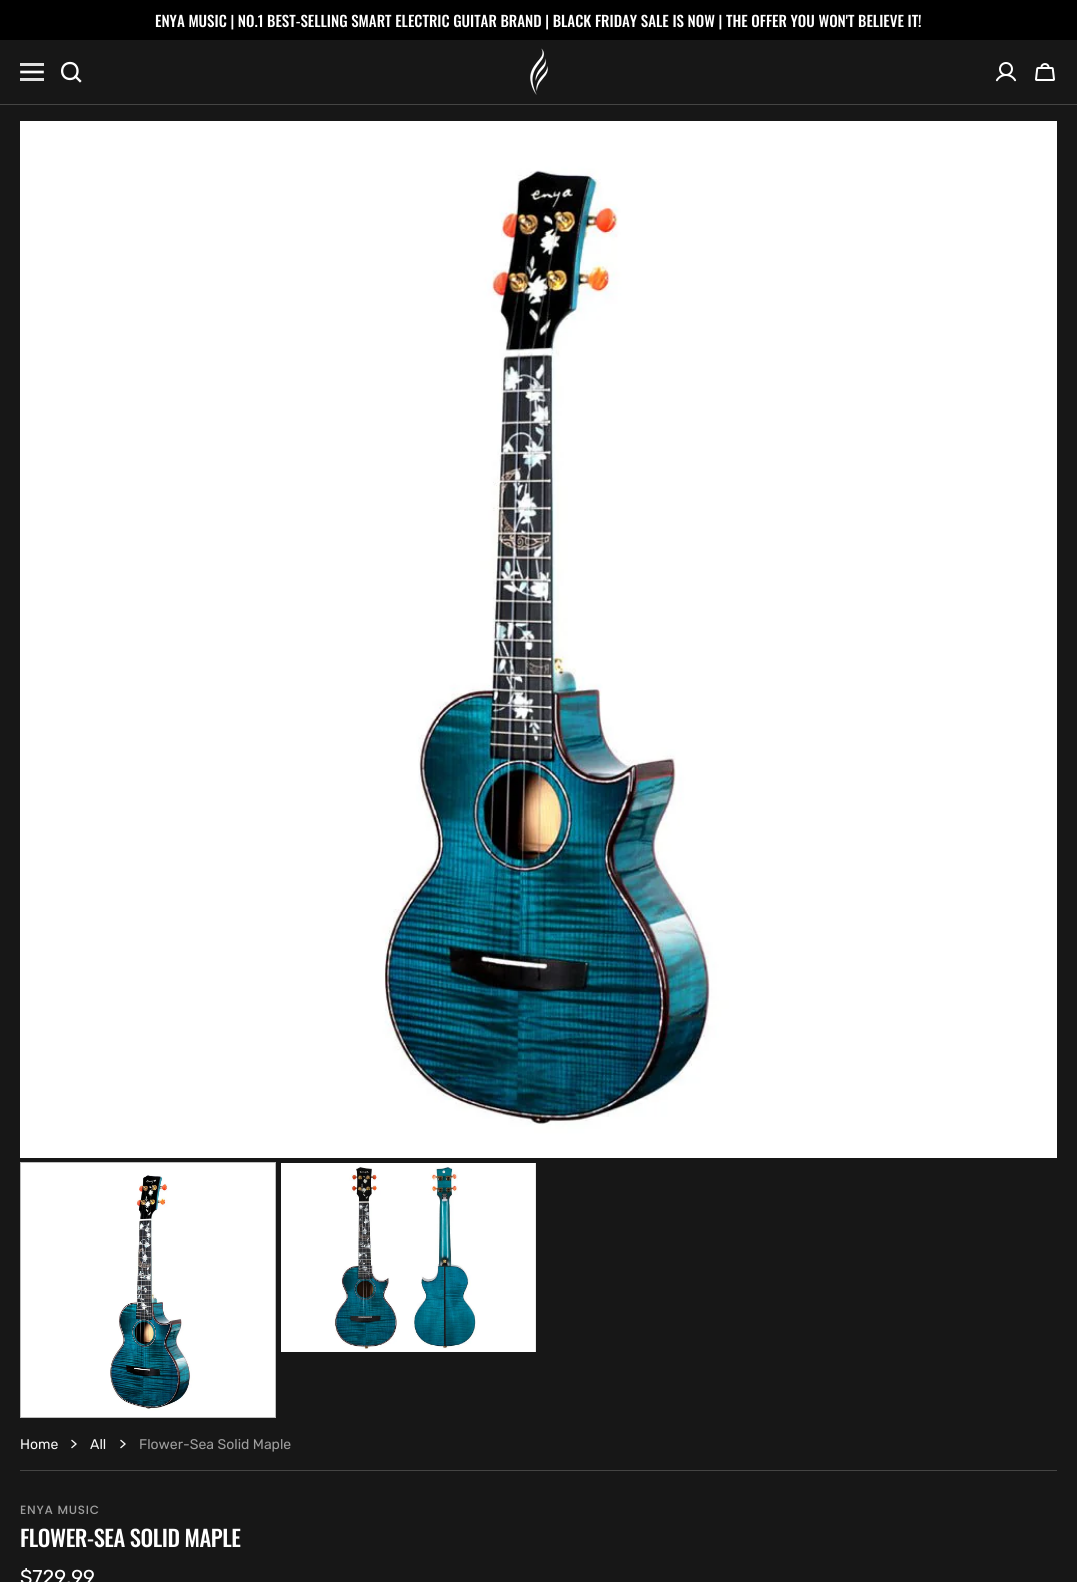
import math
import cairocffi as cairo

surface = cairo.ImageSurface(cairo.FORMAT_RGB24, 1077, 1582)
ctx = cairo.Context(surface)
options = cairo.FontOptions()
options.set_hint_metrics(cairo.HINT_METRICS_OFF)
options.set_hint_style(cairo.HINT_STYLE_NONE)
ctx.set_font_options(options)
ctx.set_miter_limit(4)


def rgb(r, g, b):
    ctx.set_source_rgb(r / 255, g / 255, b / 255)


def face(family, size, italic, bold):
    ctx.select_font_face(family, cairo.FONT_SLANT_ITALIC if italic else cairo.FONT_SLANT_NORMAL, cairo.FONT_WEIGHT_BOLD if bold else cairo.FONT_WEIGHT_NORMAL)
    ctx.set_font_size(size)


def label(x, y, s):
    ctx.move_to(x, y)
    ctx.show_text(s)


def tracked(x, y, s, letter, word):
    ctx.move_to(x, y)
    for ch in s:
        ctx.show_text(ch)
        ctx.rel_move_to(letter + word * (ch == ' '), 0)


def rect(x, y, w, h):
    ctx.rectangle(x, y, w, h)
    ctx.fill()


def image(path, x, y, w, h):
    ctx.save()
    ctx.set_source_surface(cairo.ImageSurface.create_from_png(path), x, y)
    ctx.rectangle(x, y, w, h)
    ctx.fill()
    ctx.restore()


rgb(23, 23, 23)
ctx.paint()
rgb(0, 0, 0)
rect(0, 0, 1077, 40)
face('Oswald Medium', 15, 0, 0)
rgb(255, 255, 255)
label(155, 27, 'ENYA MUSIC | NO.1 BEST-SELLING SMART ELECTRIC GUITAR BRAND | BLACK FRIDAY SALE IS NOW | THE OFFER YOU WON\'T BELIEVE IT!')
rgb(69, 69, 68)
rect(0, 104, 1077, 1)
ctx.new_path()
ctx.move_to(21.5, 72)
ctx.line_to(42.5, 72)
rgb(255, 255, 255)
ctx.set_line_width(2.6)
ctx.set_line_cap(cairo.LINE_CAP_SQUARE)
ctx.set_line_join(cairo.LINE_JOIN_ROUND)
ctx.stroke()
rgb(224, 224, 224)
rect(20, 63, 24, 3)
rect(20, 78, 24, 3)
ctx.new_path()
ctx.move_to(70, 79)
ctx.curve_to(80, 79, 80, 63, 70, 63)
ctx.curve_to(59.5, 63, 59.5, 79, 70, 79)
ctx.close_path()
rgb(255, 255, 255)
ctx.set_line_width(2.3)
ctx.set_line_cap(cairo.LINE_CAP_ROUND)
ctx.stroke()
ctx.new_path()
ctx.move_to(75.5, 76.5)
ctx.line_to(80, 81)
ctx.set_line_cap(cairo.LINE_CAP_SQUARE)
ctx.stroke()
image('image0.png', 530, 48, 18, 47)
image('image1.png', 995, 62, 22, 20)
image('image2.png', 1035, 63, 20, 18)
image('image3.png', 20, 121, 1037, 1037)
ctx.rectangle(20.5, 1162.5, 255, 255)
rgb(191, 191, 191)
ctx.set_line_width(1)
ctx.set_line_cap(cairo.LINE_CAP_BUTT)
ctx.set_line_join(cairo.LINE_JOIN_MITER)
ctx.stroke()
image('image4.png', 21, 1163, 254, 254)
image('image5.png', 281, 1163, 255, 189)
face('Rubik', 14, 0, 0)
rgb(248, 248, 248)
label(20, 1449, 'Home')
ctx.new_path()
ctx.move_to(72, 1440.5)
ctx.line_to(76, 1444)
ctx.line_to(72, 1447.5)
ctx.move_to(121, 1440.5)
ctx.line_to(125, 1444)
ctx.line_to(121, 1447.5)
ctx.set_line_width(1.3)
ctx.set_line_cap(cairo.LINE_CAP_SQUARE)
ctx.stroke()
rgb(158, 158, 158)
label(139, 1449, 'Flower-Sea Solid Maple')
rgb(248, 248, 248)
label(90, 1449, 'All')
rgb(69, 69, 68)
rect(20, 1470, 1037, 1)
face('Poppins Medium', 12, 0, 0)
rgb(158, 158, 158)
tracked(20, 1514, 'ENYA MUSIC', 0.75, 0)
face('Oswald Medium', 22.5, 0, 0)
rgb(255, 255, 255)
tracked(20, 1547, 'FLOWER-SEA SOLID MAPLE', -0.45, 0)
face('Rubik', 20, 0, 0)
label(20, 1584, '$729.99')
surface.write_to_png('render.png')
